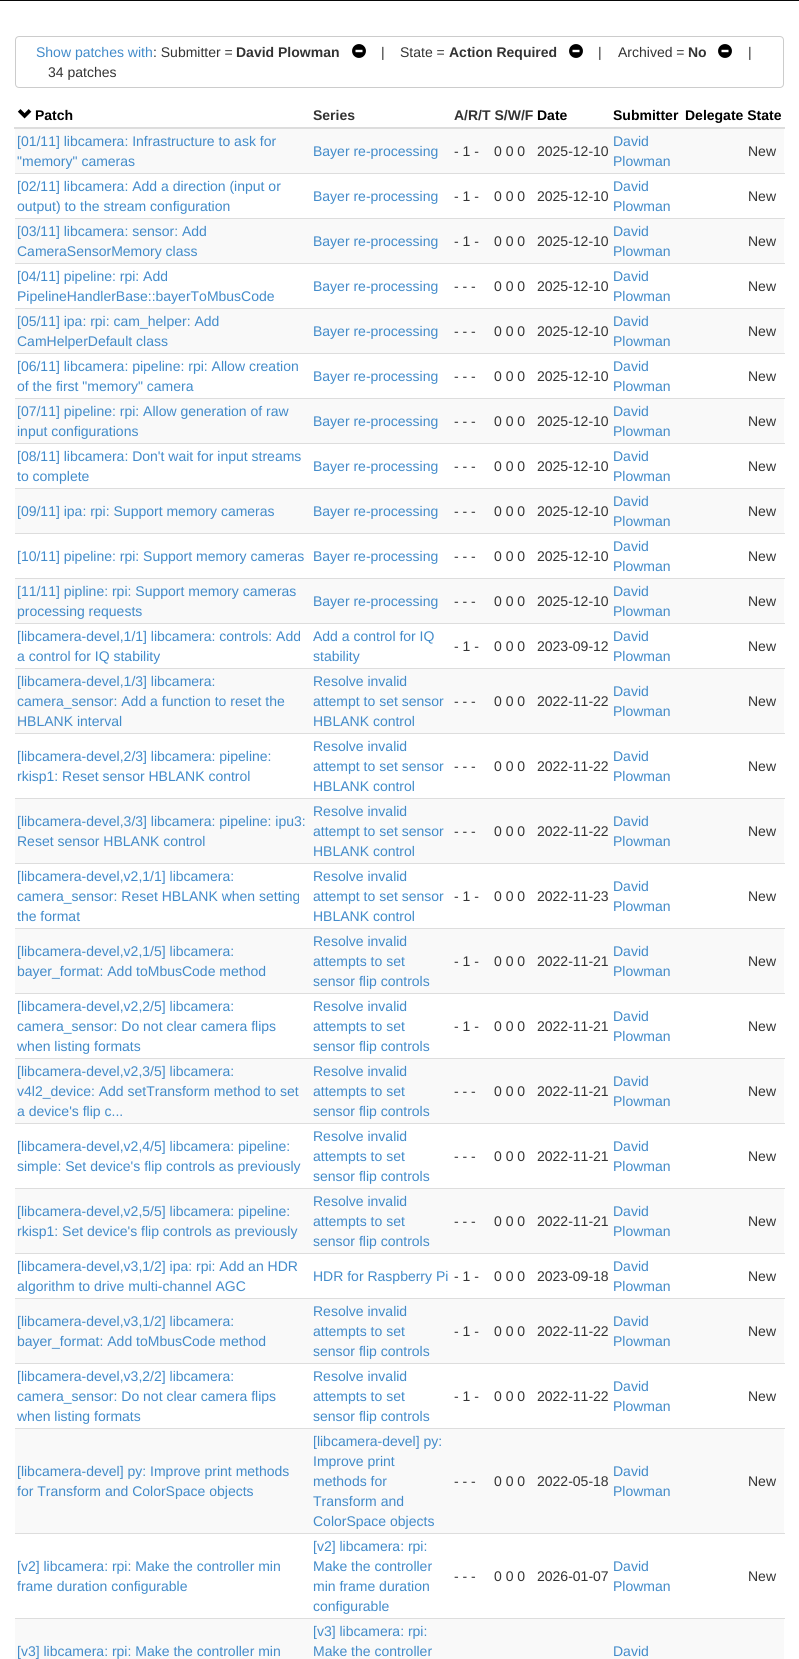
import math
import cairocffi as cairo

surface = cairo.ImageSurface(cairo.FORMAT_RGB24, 799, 1659)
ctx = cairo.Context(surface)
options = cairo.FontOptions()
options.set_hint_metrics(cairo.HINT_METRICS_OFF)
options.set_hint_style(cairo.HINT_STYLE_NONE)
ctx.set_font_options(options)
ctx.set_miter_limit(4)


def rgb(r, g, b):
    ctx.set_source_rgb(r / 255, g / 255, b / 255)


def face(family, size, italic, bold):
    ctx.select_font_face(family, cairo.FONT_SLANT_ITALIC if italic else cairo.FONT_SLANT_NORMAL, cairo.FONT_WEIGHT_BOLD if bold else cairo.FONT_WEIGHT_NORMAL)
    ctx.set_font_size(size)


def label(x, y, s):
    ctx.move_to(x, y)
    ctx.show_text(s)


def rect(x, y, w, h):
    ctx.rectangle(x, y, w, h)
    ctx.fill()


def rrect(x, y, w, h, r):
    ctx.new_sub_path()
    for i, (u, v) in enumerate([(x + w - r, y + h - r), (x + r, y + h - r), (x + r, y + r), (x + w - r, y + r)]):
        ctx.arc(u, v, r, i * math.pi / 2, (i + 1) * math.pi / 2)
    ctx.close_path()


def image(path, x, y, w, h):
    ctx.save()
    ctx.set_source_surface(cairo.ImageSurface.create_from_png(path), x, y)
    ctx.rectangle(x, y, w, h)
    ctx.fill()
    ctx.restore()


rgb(255, 255, 255)
ctx.paint()
rgb(8, 8, 8)
rect(0, 0, 799, 1)
rrect(15.5, 36.5, 768, 51, 3.5)
rgb(204, 204, 204)
ctx.set_line_width(1)
ctx.stroke()
face('Liberation Sans', 14, 0, 0)
rgb(66, 139, 202)
label(36, 57, 'Show patches with')
rgb(51, 51, 51)
label(153, 57, ': Submitter =')
face('Liberation Sans', 14, 0, 1)
label(236, 57, 'David Plowman')
image('image0.png', 352, 44, 14, 14)
face('Liberation Sans', 14, 0, 0)
label(381, 57, '|')
label(400, 57, 'State =')
face('Liberation Sans', 14, 0, 1)
label(449, 57, 'Action Required')
image('image0.png', 569, 44, 14, 14)
face('Liberation Sans', 14, 0, 0)
label(598, 57, '|')
label(618, 57, 'Archived =')
face('Liberation Sans', 14, 0, 1)
label(688, 57, 'No')
image('image0.png', 718, 44, 14, 14)
face('Liberation Sans', 14, 0, 0)
label(748, 57, '|')
label(48, 77, '34 patches')
image('image1.png', 17, 109, 15, 10)
face('Liberation Sans', 14, 0, 1)
rgb(0, 0, 0)
label(35, 120, 'Patch')
rgb(51, 51, 51)
label(313, 120, 'Series')
label(454, 120, 'A/R/T S/W/F')
rgb(0, 0, 0)
label(537, 120, 'Date')
label(613, 120, 'Submitter')
label(685, 120, 'Delegate State')
rgb(221, 221, 221)
rect(14, 127, 771, 2)
rgb(249, 249, 249)
rect(15, 129, 769, 44)
face('Liberation Sans', 14, 0, 0)
rgb(66, 139, 202)
label(17, 146, '[01/11] libcamera: Infrastructure to ask for')
label(17, 166, '"memory" cameras')
label(313, 156, 'Bayer re-processing')
rgb(51, 51, 51)
label(454, 156, '- 1 -')
label(494, 156, '0 0 0')
label(537, 156, '2025-12-10')
rgb(66, 139, 202)
label(613, 146, 'David')
label(613, 166, 'Plowman')
rgb(51, 51, 51)
label(748, 156, 'New')
rgb(66, 139, 202)
label(17, 191, '[02/11] libcamera: Add a direction (input or')
label(17, 211, 'output) to the stream configuration')
label(313, 201, 'Bayer re-processing')
rgb(51, 51, 51)
label(454, 201, '- 1 -')
label(494, 201, '0 0 0')
label(537, 201, '2025-12-10')
rgb(66, 139, 202)
label(613, 191, 'David')
label(613, 211, 'Plowman')
rgb(221, 221, 221)
rect(15, 173, 770, 1)
rgb(51, 51, 51)
label(748, 201, 'New')
rgb(249, 249, 249)
rect(15, 219, 769, 44)
rgb(66, 139, 202)
label(17, 236, '[03/11] libcamera: sensor: Add')
label(17, 256, 'CameraSensorMemory class')
label(313, 246, 'Bayer re-processing')
rgb(51, 51, 51)
label(454, 246, '- 1 -')
label(494, 246, '0 0 0')
label(537, 246, '2025-12-10')
rgb(66, 139, 202)
label(613, 236, 'David')
label(613, 256, 'Plowman')
rgb(221, 221, 221)
rect(15, 218, 770, 1)
rgb(51, 51, 51)
label(748, 246, 'New')
rgb(66, 139, 202)
label(17, 281, '[04/11] pipeline: rpi: Add')
label(17, 301, 'PipelineHandlerBase::bayerToMbusCode')
label(313, 291, 'Bayer re-processing')
rgb(51, 51, 51)
label(454, 291, '- - -')
label(494, 291, '0 0 0')
label(537, 291, '2025-12-10')
rgb(66, 139, 202)
label(613, 281, 'David')
label(613, 301, 'Plowman')
rgb(221, 221, 221)
rect(15, 263, 770, 1)
rgb(51, 51, 51)
label(748, 291, 'New')
rgb(249, 249, 249)
rect(15, 309, 769, 44)
rgb(66, 139, 202)
label(17, 326, '[05/11] ipa: rpi: cam_helper: Add')
label(17, 346, 'CamHelperDefault class')
label(313, 336, 'Bayer re-processing')
rgb(51, 51, 51)
label(454, 336, '- - -')
label(494, 336, '0 0 0')
label(537, 336, '2025-12-10')
rgb(66, 139, 202)
label(613, 326, 'David')
label(613, 346, 'Plowman')
rgb(221, 221, 221)
rect(15, 308, 770, 1)
rgb(51, 51, 51)
label(748, 336, 'New')
rgb(66, 139, 202)
label(17, 371, '[06/11] libcamera: pipeline: rpi: Allow creation')
label(17, 391, 'of the first "memory" camera')
label(313, 381, 'Bayer re-processing')
rgb(51, 51, 51)
label(454, 381, '- - -')
label(494, 381, '0 0 0')
label(537, 381, '2025-12-10')
rgb(66, 139, 202)
label(613, 371, 'David')
label(613, 391, 'Plowman')
rgb(221, 221, 221)
rect(15, 353, 770, 1)
rgb(51, 51, 51)
label(748, 381, 'New')
rgb(249, 249, 249)
rect(15, 399, 769, 44)
rgb(66, 139, 202)
label(17, 416, '[07/11] pipeline: rpi: Allow generation of raw')
label(17, 436, 'input configurations')
label(313, 426, 'Bayer re-processing')
rgb(51, 51, 51)
label(454, 426, '- - -')
label(494, 426, '0 0 0')
label(537, 426, '2025-12-10')
rgb(66, 139, 202)
label(613, 416, 'David')
label(613, 436, 'Plowman')
rgb(221, 221, 221)
rect(15, 398, 770, 1)
rgb(51, 51, 51)
label(748, 426, 'New')
rgb(66, 139, 202)
label(17, 461, '[08/11] libcamera: Don\'t wait for input streams')
label(17, 481, 'to complete')
label(313, 471, 'Bayer re-processing')
rgb(51, 51, 51)
label(454, 471, '- - -')
label(494, 471, '0 0 0')
label(537, 471, '2025-12-10')
rgb(66, 139, 202)
label(613, 461, 'David')
label(613, 481, 'Plowman')
rgb(221, 221, 221)
rect(15, 443, 770, 1)
rgb(51, 51, 51)
label(748, 471, 'New')
rgb(249, 249, 249)
rect(15, 489, 769, 44)
rgb(66, 139, 202)
label(17, 516, '[09/11] ipa: rpi: Support memory cameras')
label(313, 516, 'Bayer re-processing')
rgb(51, 51, 51)
label(454, 516, '- - -')
label(494, 516, '0 0 0')
label(537, 516, '2025-12-10')
rgb(66, 139, 202)
label(613, 506, 'David')
label(613, 526, 'Plowman')
rgb(221, 221, 221)
rect(15, 488, 770, 1)
rgb(51, 51, 51)
label(748, 516, 'New')
rgb(66, 139, 202)
label(17, 561, '[10/11] pipeline: rpi: Support memory cameras')
label(313, 561, 'Bayer re-processing')
rgb(51, 51, 51)
label(454, 561, '- - -')
label(494, 561, '0 0 0')
label(537, 561, '2025-12-10')
rgb(66, 139, 202)
label(613, 551, 'David')
label(613, 571, 'Plowman')
rgb(221, 221, 221)
rect(15, 533, 770, 1)
rgb(51, 51, 51)
label(748, 561, 'New')
rgb(249, 249, 249)
rect(15, 579, 769, 44)
rgb(66, 139, 202)
label(17, 596, '[11/11] pipline: rpi: Support memory cameras')
label(17, 616, 'processing requests')
label(313, 606, 'Bayer re-processing')
rgb(51, 51, 51)
label(454, 606, '- - -')
label(494, 606, '0 0 0')
label(537, 606, '2025-12-10')
rgb(66, 139, 202)
label(613, 596, 'David')
label(613, 616, 'Plowman')
rgb(221, 221, 221)
rect(15, 578, 770, 1)
rgb(51, 51, 51)
label(748, 606, 'New')
rgb(66, 139, 202)
label(17, 641, '[libcamera-devel,1/1] libcamera: controls: Add')
label(17, 661, 'a control for IQ stability')
label(313, 641, 'Add a control for IQ')
label(313, 661, 'stability')
rgb(51, 51, 51)
label(454, 651, '- 1 -')
label(494, 651, '0 0 0')
label(537, 651, '2023-09-12')
rgb(66, 139, 202)
label(613, 641, 'David')
label(613, 661, 'Plowman')
rgb(221, 221, 221)
rect(15, 623, 770, 1)
rgb(51, 51, 51)
label(748, 651, 'New')
rgb(249, 249, 249)
rect(15, 669, 769, 64)
rgb(66, 139, 202)
label(17, 686, '[libcamera-devel,1/3] libcamera:')
label(17, 706, 'camera_sensor: Add a function to reset the')
label(17, 726, 'HBLANK interval')
label(313, 686, 'Resolve invalid')
label(313, 706, 'attempt to set sensor')
label(313, 726, 'HBLANK control')
rgb(51, 51, 51)
label(454, 706, '- - -')
label(494, 706, '0 0 0')
label(537, 706, '2022-11-22')
rgb(66, 139, 202)
label(613, 696, 'David')
label(613, 716, 'Plowman')
rgb(221, 221, 221)
rect(15, 668, 770, 1)
rgb(51, 51, 51)
label(748, 706, 'New')
rgb(66, 139, 202)
label(17, 761, '[libcamera-devel,2/3] libcamera: pipeline:')
label(17, 781, 'rkisp1: Reset sensor HBLANK control')
label(313, 751, 'Resolve invalid')
label(313, 771, 'attempt to set sensor')
label(313, 791, 'HBLANK control')
rgb(51, 51, 51)
label(454, 771, '- - -')
label(494, 771, '0 0 0')
label(537, 771, '2022-11-22')
rgb(66, 139, 202)
label(613, 761, 'David')
label(613, 781, 'Plowman')
rgb(221, 221, 221)
rect(15, 733, 770, 1)
rgb(51, 51, 51)
label(748, 771, 'New')
rgb(249, 249, 249)
rect(15, 799, 769, 64)
rgb(66, 139, 202)
label(17, 826, '[libcamera-devel,3/3] libcamera: pipeline: ipu3:')
label(17, 846, 'Reset sensor HBLANK control')
label(313, 816, 'Resolve invalid')
label(313, 836, 'attempt to set sensor')
label(313, 856, 'HBLANK control')
rgb(51, 51, 51)
label(454, 836, '- - -')
label(494, 836, '0 0 0')
label(537, 836, '2022-11-22')
rgb(66, 139, 202)
label(613, 826, 'David')
label(613, 846, 'Plowman')
rgb(221, 221, 221)
rect(15, 798, 770, 1)
rgb(51, 51, 51)
label(748, 836, 'New')
rgb(66, 139, 202)
label(17, 881, '[libcamera-devel,v2,1/1] libcamera:')
label(17, 901, 'camera_sensor: Reset HBLANK when setting')
label(17, 921, 'the format')
label(313, 881, 'Resolve invalid')
label(313, 901, 'attempt to set sensor')
label(313, 921, 'HBLANK control')
rgb(51, 51, 51)
label(454, 901, '- 1 -')
label(494, 901, '0 0 0')
label(537, 901, '2022-11-23')
rgb(66, 139, 202)
label(613, 891, 'David')
label(613, 911, 'Plowman')
rgb(221, 221, 221)
rect(15, 863, 770, 1)
rgb(51, 51, 51)
label(748, 901, 'New')
rgb(249, 249, 249)
rect(15, 929, 769, 64)
rgb(66, 139, 202)
label(17, 956, '[libcamera-devel,v2,1/5] libcamera:')
label(17, 976, 'bayer_format: Add toMbusCode method')
label(313, 946, 'Resolve invalid')
label(313, 966, 'attempts to set')
label(313, 986, 'sensor flip controls')
rgb(51, 51, 51)
label(454, 966, '- 1 -')
label(494, 966, '0 0 0')
label(537, 966, '2022-11-21')
rgb(66, 139, 202)
label(613, 956, 'David')
label(613, 976, 'Plowman')
rgb(221, 221, 221)
rect(15, 928, 770, 1)
rgb(51, 51, 51)
label(748, 966, 'New')
rgb(66, 139, 202)
label(17, 1011, '[libcamera-devel,v2,2/5] libcamera:')
label(17, 1031, 'camera_sensor: Do not clear camera flips')
label(17, 1051, 'when listing formats')
label(313, 1011, 'Resolve invalid')
label(313, 1031, 'attempts to set')
label(313, 1051, 'sensor flip controls')
rgb(51, 51, 51)
label(454, 1031, '- 1 -')
label(494, 1031, '0 0 0')
label(537, 1031, '2022-11-21')
rgb(66, 139, 202)
label(613, 1021, 'David')
label(613, 1041, 'Plowman')
rgb(221, 221, 221)
rect(15, 993, 770, 1)
rgb(51, 51, 51)
label(748, 1031, 'New')
rgb(249, 249, 249)
rect(15, 1059, 769, 64)
rgb(66, 139, 202)
label(17, 1076, '[libcamera-devel,v2,3/5] libcamera:')
label(17, 1096, 'v4l2_device: Add setTransform method to set')
label(17, 1116, 'a device\'s flip c...')
label(313, 1076, 'Resolve invalid')
label(313, 1096, 'attempts to set')
label(313, 1116, 'sensor flip controls')
rgb(51, 51, 51)
label(454, 1096, '- - -')
label(494, 1096, '0 0 0')
label(537, 1096, '2022-11-21')
rgb(66, 139, 202)
label(613, 1086, 'David')
label(613, 1106, 'Plowman')
rgb(221, 221, 221)
rect(15, 1058, 770, 1)
rgb(51, 51, 51)
label(748, 1096, 'New')
rgb(66, 139, 202)
label(17, 1151, '[libcamera-devel,v2,4/5] libcamera: pipeline:')
label(17, 1171, 'simple: Set device\'s flip controls as previously')
label(313, 1141, 'Resolve invalid')
label(313, 1161, 'attempts to set')
label(313, 1181, 'sensor flip controls')
rgb(51, 51, 51)
label(454, 1161, '- - -')
label(494, 1161, '0 0 0')
label(537, 1161, '2022-11-21')
rgb(66, 139, 202)
label(613, 1151, 'David')
label(613, 1171, 'Plowman')
rgb(221, 221, 221)
rect(15, 1123, 770, 1)
rgb(51, 51, 51)
label(748, 1161, 'New')
rgb(249, 249, 249)
rect(15, 1189, 769, 64)
rgb(66, 139, 202)
label(17, 1216, '[libcamera-devel,v2,5/5] libcamera: pipeline:')
label(17, 1236, 'rkisp1: Set device\'s flip controls as previously')
label(313, 1206, 'Resolve invalid')
label(313, 1226, 'attempts to set')
label(313, 1246, 'sensor flip controls')
rgb(51, 51, 51)
label(454, 1226, '- - -')
label(494, 1226, '0 0 0')
label(537, 1226, '2022-11-21')
rgb(66, 139, 202)
label(613, 1216, 'David')
label(613, 1236, 'Plowman')
rgb(221, 221, 221)
rect(15, 1188, 770, 1)
rgb(51, 51, 51)
label(748, 1226, 'New')
rgb(66, 139, 202)
label(17, 1271, '[libcamera-devel,v3,1/2] ipa: rpi: Add an HDR')
label(17, 1291, 'algorithm to drive multi-channel AGC')
label(313, 1281, 'HDR for Raspberry Pi')
rgb(51, 51, 51)
label(454, 1281, '- 1 -')
label(494, 1281, '0 0 0')
label(537, 1281, '2023-09-18')
rgb(66, 139, 202)
label(613, 1271, 'David')
label(613, 1291, 'Plowman')
rgb(221, 221, 221)
rect(15, 1253, 770, 1)
rgb(51, 51, 51)
label(748, 1281, 'New')
rgb(249, 249, 249)
rect(15, 1299, 769, 64)
rgb(66, 139, 202)
label(17, 1326, '[libcamera-devel,v3,1/2] libcamera:')
label(17, 1346, 'bayer_format: Add toMbusCode method')
label(313, 1316, 'Resolve invalid')
label(313, 1336, 'attempts to set')
label(313, 1356, 'sensor flip controls')
rgb(51, 51, 51)
label(454, 1336, '- 1 -')
label(494, 1336, '0 0 0')
label(537, 1336, '2022-11-22')
rgb(66, 139, 202)
label(613, 1326, 'David')
label(613, 1346, 'Plowman')
rgb(221, 221, 221)
rect(15, 1298, 770, 1)
rgb(51, 51, 51)
label(748, 1336, 'New')
rgb(66, 139, 202)
label(17, 1381, '[libcamera-devel,v3,2/2] libcamera:')
label(17, 1401, 'camera_sensor: Do not clear camera flips')
label(17, 1421, 'when listing formats')
label(313, 1381, 'Resolve invalid')
label(313, 1401, 'attempts to set')
label(313, 1421, 'sensor flip controls')
rgb(51, 51, 51)
label(454, 1401, '- 1 -')
label(494, 1401, '0 0 0')
label(537, 1401, '2022-11-22')
rgb(66, 139, 202)
label(613, 1391, 'David')
label(613, 1411, 'Plowman')
rgb(221, 221, 221)
rect(15, 1363, 770, 1)
rgb(51, 51, 51)
label(748, 1401, 'New')
rgb(249, 249, 249)
rect(15, 1429, 769, 104)
rgb(66, 139, 202)
label(17, 1476, '[libcamera-devel] py: Improve print methods')
label(17, 1496, 'for Transform and ColorSpace objects')
label(313, 1446, '[libcamera-devel] py:')
label(313, 1466, 'Improve print')
label(313, 1486, 'methods for')
label(313, 1506, 'Transform and')
label(313, 1526, 'ColorSpace objects')
rgb(51, 51, 51)
label(454, 1486, '- - -')
label(494, 1486, '0 0 0')
label(537, 1486, '2022-05-18')
rgb(66, 139, 202)
label(613, 1476, 'David')
label(613, 1496, 'Plowman')
rgb(221, 221, 221)
rect(15, 1428, 770, 1)
rgb(51, 51, 51)
label(748, 1486, 'New')
rgb(66, 139, 202)
label(17, 1571, '[v2] libcamera: rpi: Make the controller min')
label(17, 1591, 'frame duration configurable')
label(313, 1551, '[v2] libcamera: rpi:')
label(313, 1571, 'Make the controller')
label(313, 1591, 'min frame duration')
label(313, 1611, 'configurable')
rgb(51, 51, 51)
label(454, 1581, '- - -')
label(494, 1581, '0 0 0')
label(537, 1581, '2026-01-07')
rgb(66, 139, 202)
label(613, 1571, 'David')
label(613, 1591, 'Plowman')
rgb(221, 221, 221)
rect(15, 1533, 770, 1)
rgb(51, 51, 51)
label(748, 1581, 'New')
rgb(221, 221, 221)
rect(15, 1618, 770, 1)
rgb(249, 249, 249)
rect(15, 1619, 769, 40)
rgb(66, 139, 202)
label(17, 1656, '[v3] libcamera: rpi: Make the controller min')
label(313, 1636, '[v3] libcamera: rpi:')
label(313, 1656, 'Make the controller')
label(613, 1656, 'David')
surface.write_to_png('render.png')
